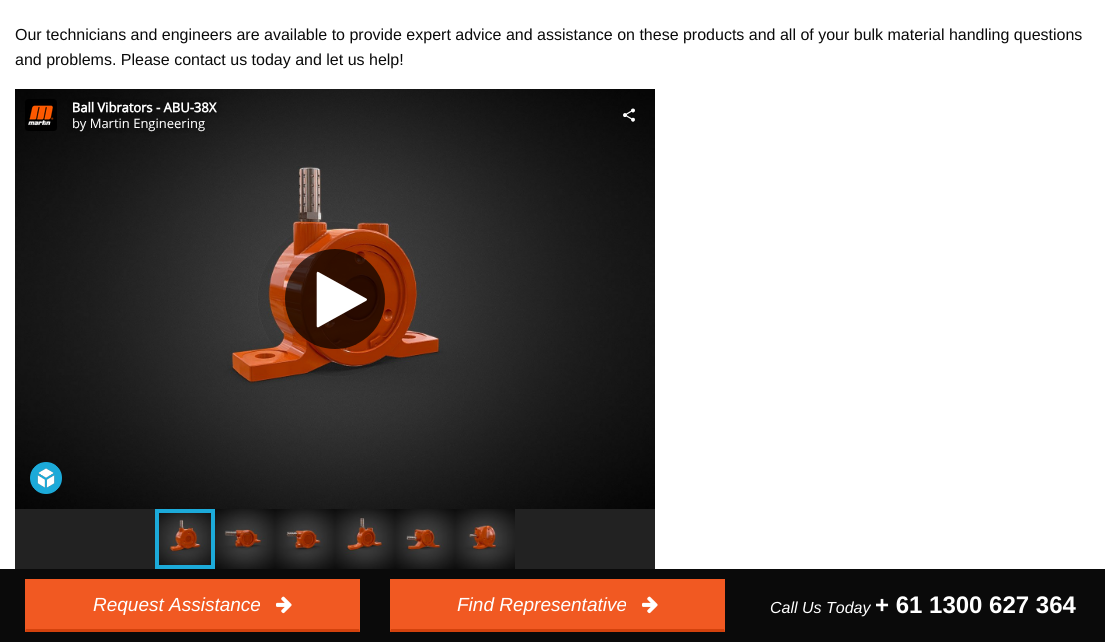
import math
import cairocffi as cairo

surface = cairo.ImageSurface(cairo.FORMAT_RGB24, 1105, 642)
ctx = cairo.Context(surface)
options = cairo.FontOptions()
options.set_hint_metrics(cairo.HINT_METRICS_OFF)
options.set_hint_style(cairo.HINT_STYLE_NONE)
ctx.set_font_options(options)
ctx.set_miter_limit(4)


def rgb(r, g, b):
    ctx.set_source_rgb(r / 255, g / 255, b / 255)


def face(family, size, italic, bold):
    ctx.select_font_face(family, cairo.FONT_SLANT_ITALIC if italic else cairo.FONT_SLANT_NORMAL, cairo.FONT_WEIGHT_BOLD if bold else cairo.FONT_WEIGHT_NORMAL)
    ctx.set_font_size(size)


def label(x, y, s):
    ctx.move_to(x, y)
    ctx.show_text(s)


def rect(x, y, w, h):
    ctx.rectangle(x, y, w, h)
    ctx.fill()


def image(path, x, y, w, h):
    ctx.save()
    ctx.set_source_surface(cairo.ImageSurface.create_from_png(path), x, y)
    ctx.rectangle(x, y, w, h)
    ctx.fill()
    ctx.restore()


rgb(255, 255, 255)
ctx.paint()
face('Liberation Sans', 16, 0, 0)
rgb(10, 10, 10)
label(15, 40, 'Our technicians and engineers are available to provide expert advice and assistance on these products and all of your bulk material handling questions')
label(15, 65, 'and problems. Please contact us today and let us help!')
image('image0.png', 15, 89, 640, 480)
rect(0, 569, 1105, 73)
rgb(241, 89, 34)
rect(25, 579, 335, 53)
rgb(211, 66, 13)
ctx.new_path()
ctx.move_to(360, 632)
ctx.line_to(25, 632)
ctx.line_to(26, 629)
ctx.line_to(359, 629)
ctx.close_path()
ctx.fill()
face('Liberation Sans', 19, 1, 0)
rgb(255, 255, 255)
label(93, 611, 'Request Assistance')
image('image1.png', 276, 596, 16, 18)
rgb(241, 89, 34)
rect(390, 579, 335, 53)
rgb(211, 66, 13)
ctx.new_path()
ctx.move_to(725, 632)
ctx.line_to(390, 632)
ctx.line_to(391, 629)
ctx.line_to(724, 629)
ctx.close_path()
ctx.fill()
rgb(255, 255, 255)
label(457, 611, 'Find Representative')
image('image1.png', 642, 596, 16, 18)
face('Liberation Sans', 16, 1, 0)
label(770, 613, 'Call Us Today')
face('Liberation Sans', 24, 0, 1)
label(875, 613, '+ 61 1300 627 364')
surface.write_to_png('render.png')
